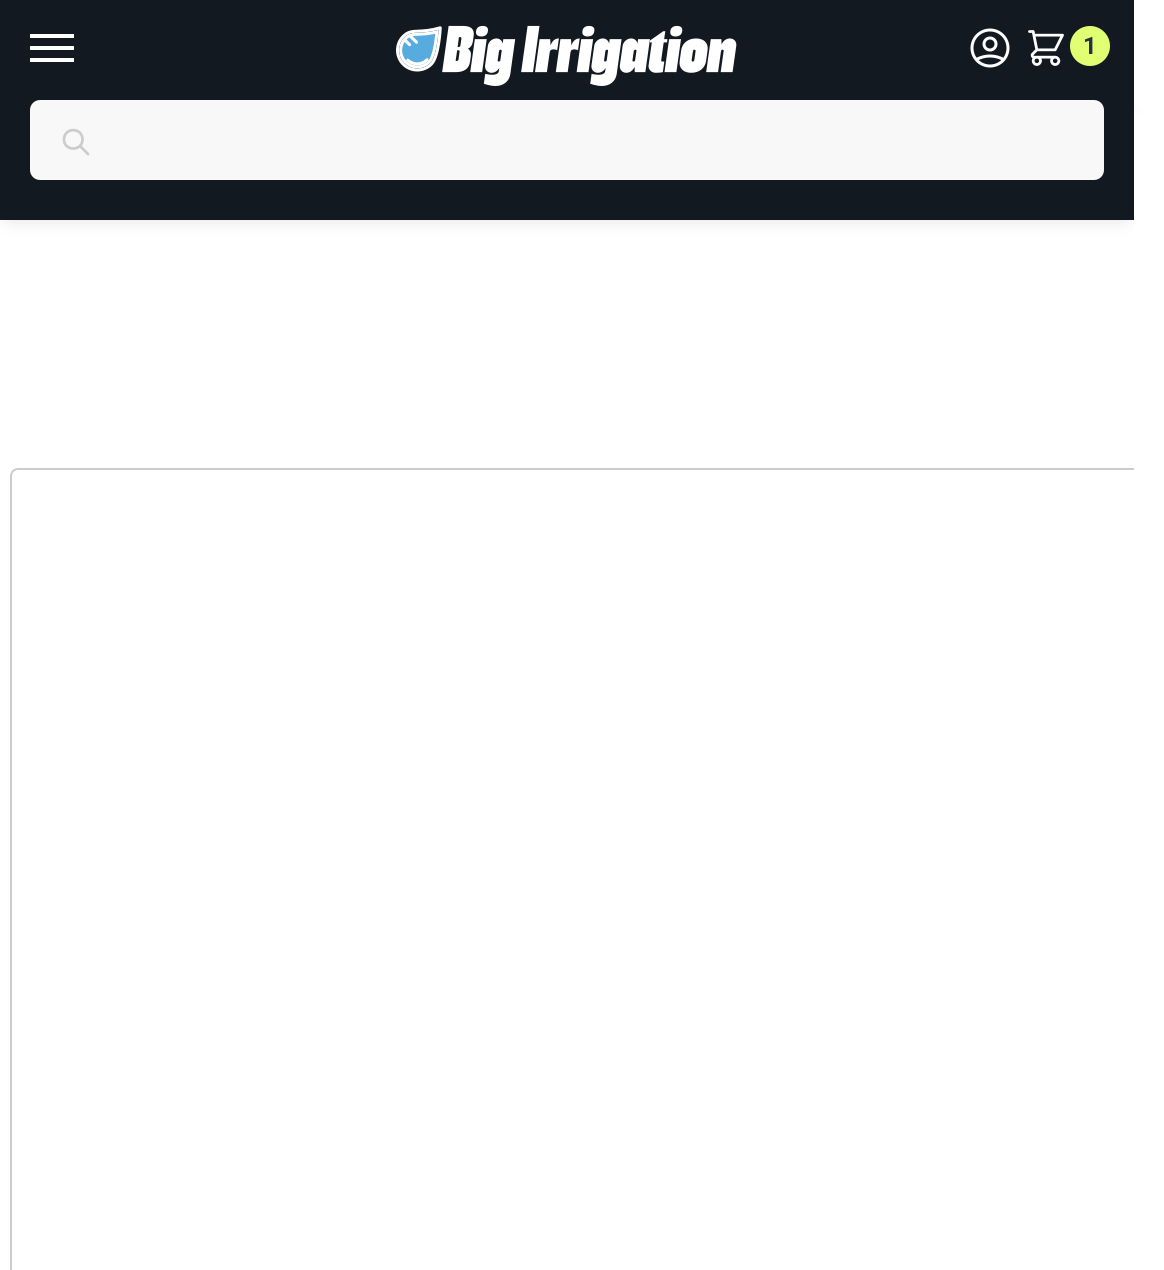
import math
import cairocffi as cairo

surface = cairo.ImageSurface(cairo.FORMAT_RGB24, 1164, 1270)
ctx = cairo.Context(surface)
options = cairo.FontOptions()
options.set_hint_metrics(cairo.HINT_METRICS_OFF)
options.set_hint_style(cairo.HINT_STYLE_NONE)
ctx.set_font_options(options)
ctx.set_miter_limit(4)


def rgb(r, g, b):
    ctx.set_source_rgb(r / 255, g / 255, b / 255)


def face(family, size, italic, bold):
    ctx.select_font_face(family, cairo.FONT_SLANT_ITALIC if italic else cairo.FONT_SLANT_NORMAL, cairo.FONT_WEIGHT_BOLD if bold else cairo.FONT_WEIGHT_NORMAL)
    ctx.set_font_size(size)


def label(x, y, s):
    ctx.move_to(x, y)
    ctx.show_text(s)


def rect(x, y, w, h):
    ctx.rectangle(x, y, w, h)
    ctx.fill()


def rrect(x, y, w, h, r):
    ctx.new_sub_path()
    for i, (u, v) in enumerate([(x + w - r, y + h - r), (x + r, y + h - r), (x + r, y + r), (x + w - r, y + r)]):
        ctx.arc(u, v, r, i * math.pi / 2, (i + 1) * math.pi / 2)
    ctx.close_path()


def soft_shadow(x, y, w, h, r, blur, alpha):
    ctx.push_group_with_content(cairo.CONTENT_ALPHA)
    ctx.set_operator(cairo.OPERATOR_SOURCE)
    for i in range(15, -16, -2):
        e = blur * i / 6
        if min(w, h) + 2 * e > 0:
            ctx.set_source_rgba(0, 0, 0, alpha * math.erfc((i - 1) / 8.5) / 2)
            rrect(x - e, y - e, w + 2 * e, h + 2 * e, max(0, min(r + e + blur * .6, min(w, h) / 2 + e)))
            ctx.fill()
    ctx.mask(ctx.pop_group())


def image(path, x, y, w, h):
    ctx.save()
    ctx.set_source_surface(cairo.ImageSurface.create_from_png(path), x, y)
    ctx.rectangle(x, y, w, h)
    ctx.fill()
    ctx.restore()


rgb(255, 255, 255)
ctx.paint()
rgb(19, 25, 33)
rect(0, 0, 1134, 100)
rgb(255, 255, 255)
rect(30, 34, 44, 4)
rect(30, 46, 44, 4)
rect(30, 58, 44, 4)
image('image0.png', 396, 25, 341, 61)
image('image1.png', 970, 28, 40, 40)
image('image2.png', 1028, 30, 36, 36)
rgb(224, 255, 115)
ctx.arc(1090, 46, 19, 0, 2 * math.pi)
ctx.fill_preserve()
ctx.stroke()
face('Roboto', 24, 0, 1)
rgb(35, 47, 62)
label(1083, 54, '1')
rgb(0, 0, 0)
soft_shadow(10, 116, 1114, 100, 0, 10, 0.18)
rgb(19, 25, 33)
rect(0, 100, 1134, 120)
rgb(248, 248, 248)
rrect(31, 101, 1072, 78, 9)
ctx.fill_preserve()
ctx.stroke()
ctx.new_path()
ctx.move_to(88, 154)
ctx.line_to(80, 146)
ctx.move_to(82.5, 139.5)
ctx.curve_to(82.5, 151.5, 64, 151.5, 64, 139.5)
ctx.curve_to(64, 127, 82.5, 127, 82.5, 139.5)
ctx.close_path()
rgb(204, 204, 204)
ctx.set_line_width(2.7)
ctx.set_line_cap(cairo.LINE_CAP_ROUND)
ctx.set_line_join(cairo.LINE_JOIN_ROUND)
ctx.stroke()
rrect(11, 469, 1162, 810, 7)
ctx.set_line_width(2)
ctx.set_line_cap(cairo.LINE_CAP_BUTT)
ctx.set_line_join(cairo.LINE_JOIN_MITER)
ctx.stroke()
rgb(255, 255, 255)
rect(1134, 113, 30, 357)
surface.write_to_png('render.png')
